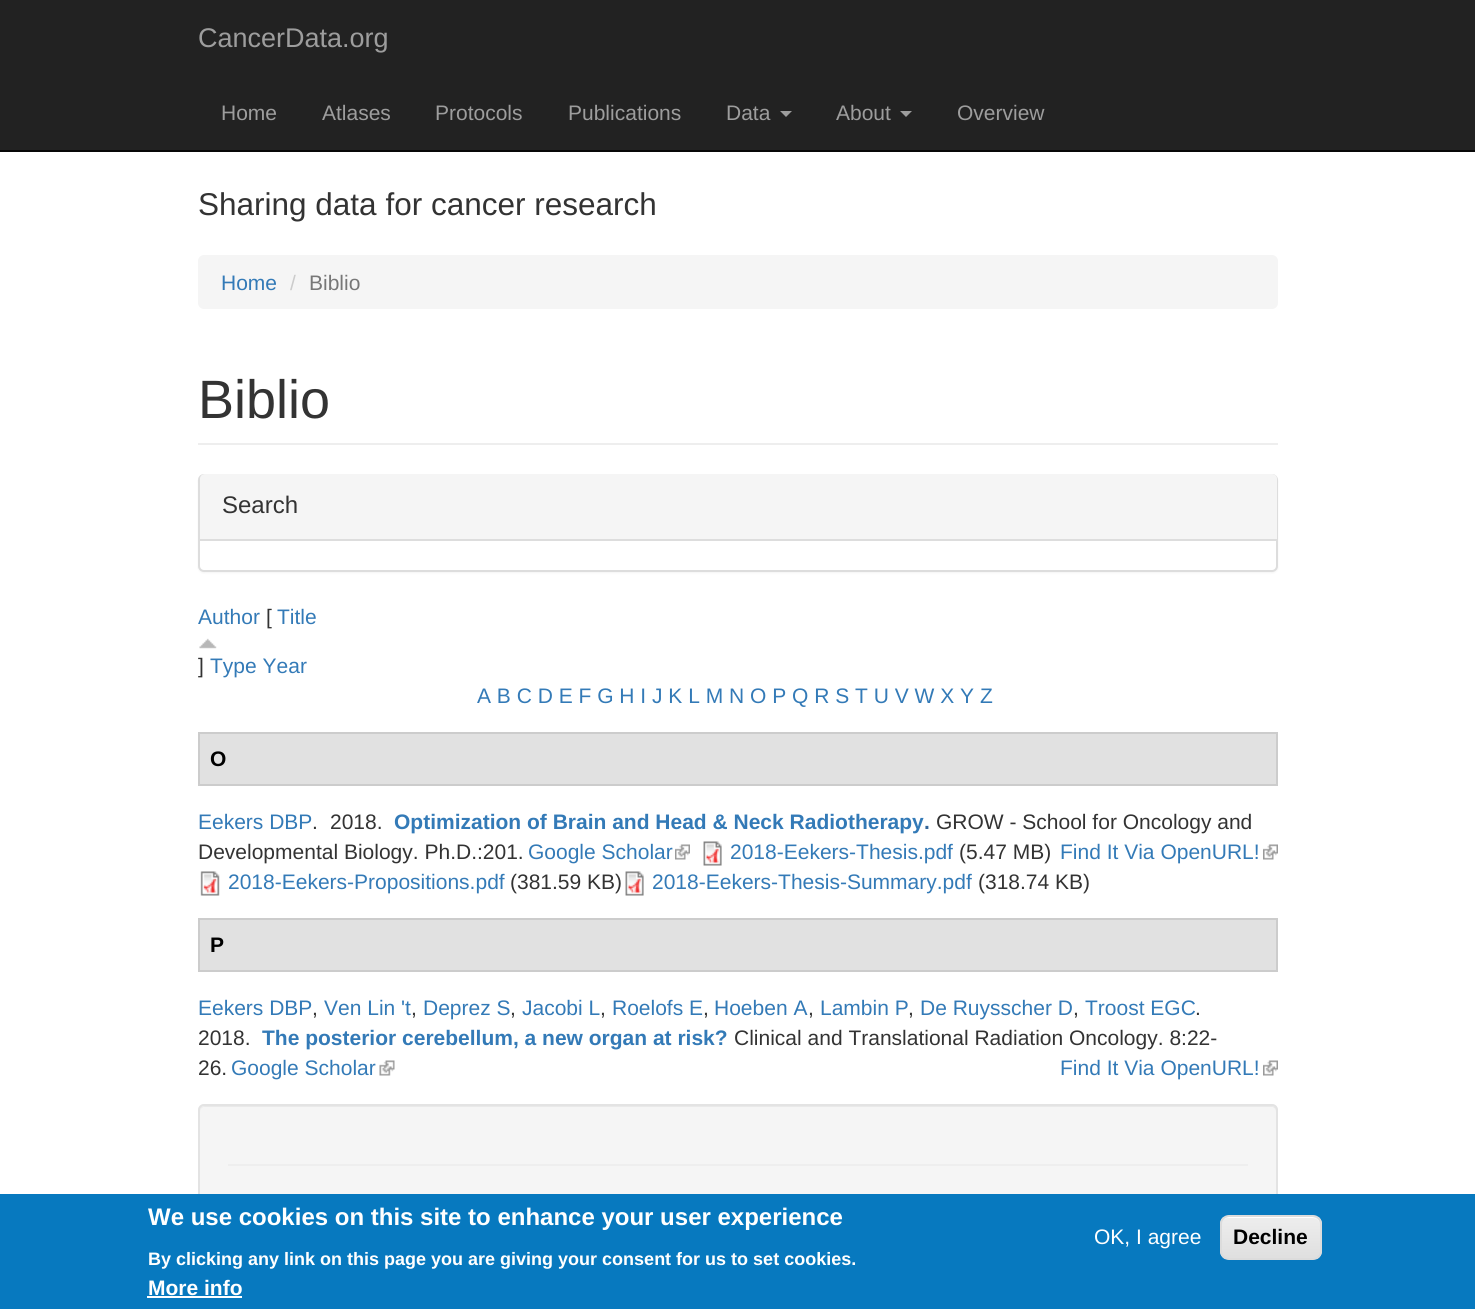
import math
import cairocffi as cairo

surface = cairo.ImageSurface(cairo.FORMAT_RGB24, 1475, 1309)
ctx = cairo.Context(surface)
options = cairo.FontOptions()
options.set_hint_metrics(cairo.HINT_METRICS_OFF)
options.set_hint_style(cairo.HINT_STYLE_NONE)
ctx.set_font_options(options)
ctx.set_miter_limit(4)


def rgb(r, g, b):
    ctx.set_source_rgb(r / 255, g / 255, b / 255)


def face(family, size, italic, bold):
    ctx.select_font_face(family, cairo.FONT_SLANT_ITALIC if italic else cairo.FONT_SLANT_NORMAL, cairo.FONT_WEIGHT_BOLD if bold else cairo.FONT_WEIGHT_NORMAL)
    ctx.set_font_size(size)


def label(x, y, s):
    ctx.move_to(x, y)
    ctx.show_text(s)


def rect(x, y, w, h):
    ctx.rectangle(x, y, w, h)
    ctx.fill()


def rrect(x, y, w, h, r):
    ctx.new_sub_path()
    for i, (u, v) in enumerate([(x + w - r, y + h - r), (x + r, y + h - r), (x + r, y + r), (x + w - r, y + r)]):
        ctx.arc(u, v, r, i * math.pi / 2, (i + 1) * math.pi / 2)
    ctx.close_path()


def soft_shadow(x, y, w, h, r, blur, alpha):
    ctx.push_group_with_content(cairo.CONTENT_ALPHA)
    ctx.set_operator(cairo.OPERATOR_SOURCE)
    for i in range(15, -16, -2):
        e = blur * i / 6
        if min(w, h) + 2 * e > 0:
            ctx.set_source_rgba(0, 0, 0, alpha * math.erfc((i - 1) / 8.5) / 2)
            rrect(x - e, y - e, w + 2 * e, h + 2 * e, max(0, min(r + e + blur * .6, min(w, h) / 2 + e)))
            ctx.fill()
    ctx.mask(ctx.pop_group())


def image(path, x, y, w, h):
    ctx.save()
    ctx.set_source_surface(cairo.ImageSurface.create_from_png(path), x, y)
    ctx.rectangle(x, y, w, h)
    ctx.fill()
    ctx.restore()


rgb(255, 255, 255)
ctx.paint()
rgb(34, 34, 34)
rect(0, 0, 1475, 150)
rgb(8, 8, 8)
rect(0, 150, 1475, 2)
face('Liberation Sans', 27, 0, 0)
rgb(157, 157, 157)
label(198, 47, 'CancerData.org')
face('Liberation Sans', 21, 0, 0)
label(221, 120, 'Home')
label(322, 120, 'Atlases')
label(435, 120, 'Protocols')
label(568, 120, 'Publications')
label(726, 120, 'Data')
ctx.new_path()
ctx.move_to(780, 111)
ctx.line_to(792, 111)
ctx.line_to(786, 117)
ctx.close_path()
ctx.fill()
label(836, 120, 'About')
ctx.new_path()
ctx.move_to(900, 111)
ctx.line_to(912, 111)
ctx.line_to(906, 117)
ctx.close_path()
ctx.fill()
label(957, 120, 'Overview')
face('Liberation Sans', 31.5, 0, 0)
rgb(51, 51, 51)
label(198, 215, 'Sharing data for cancer research')
rgb(245, 245, 245)
rrect(198, 255, 1080, 54, 6)
ctx.fill()
face('Liberation Sans', 21, 0, 0)
rgb(51, 122, 183)
label(221, 290, 'Home')
rgb(204, 204, 204)
label(290, 290, '/')
rgb(119, 119, 119)
label(309, 290, 'Biblio')
rgb(238, 238, 238)
rect(198, 443, 1080, 2)
face('Liberation Sans', 54, 0, 0)
rgb(51, 51, 51)
label(198, 418, 'Biblio')
rgb(0, 0, 0)
soft_shadow(198, 476, 1080, 97, 6, 1, 0.05)
rgb(255, 255, 255)
rrect(199, 475, 1078, 96, 5)
ctx.fill_preserve()
rgb(221, 221, 221)
ctx.stroke()
rgb(245, 245, 245)
ctx.new_path()
ctx.move_to(205, 474)
ctx.line_to(1272, 474)
ctx.curve_to(1275, 474, 1277, 476, 1277, 479)
ctx.line_to(1277, 540)
ctx.line_to(200, 540)
ctx.line_to(200, 479)
ctx.curve_to(200, 476, 202, 474, 205, 474)
ctx.close_path()
ctx.fill()
rgb(221, 221, 221)
rect(200, 539, 1077, 2)
face('Liberation Sans', 24, 0, 0)
rgb(51, 51, 51)
label(222, 513, 'Search')
face('Liberation Sans', 21, 0, 0)
rgb(51, 122, 183)
label(198, 624, 'Author')
rgb(51, 51, 51)
label(266, 624, '[')
rgb(51, 122, 183)
label(277, 624, 'Title')
image('image0.png', 199, 638, 18, 11)
rgb(51, 51, 51)
label(198, 673, ']')
rgb(51, 122, 183)
label(210, 673, 'Type Year')
label(477, 703, 'A B C D E F G H I J K L M N O P Q R S T U V W X Y Z')
rgb(225, 225, 225)
ctx.rectangle(199, 733, 1078, 52)
ctx.fill_preserve()
rgb(204, 204, 204)
ctx.stroke()
face('Liberation Sans', 21, 0, 1)
rgb(0, 0, 0)
label(210, 766, 'O')
face('Liberation Sans', 21, 0, 0)
rgb(51, 122, 183)
label(198, 829, 'Eekers DBP')
rgb(51, 51, 51)
label(312, 829, '.')
label(330, 829, '2018.')
face('Liberation Sans', 21, 0, 1)
rgb(51, 122, 183)
label(394, 829, 'Optimization of Brain and Head & Neck Radiotherapy')
rgb(51, 101, 153)
label(924, 829, '.')
face('Liberation Sans', 21, 0, 0)
rgb(51, 51, 51)
label(936, 829, 'GROW - School for Oncology and')
label(198, 859, 'Developmental Biology. Ph.D.:201.')
rgb(51, 122, 183)
label(528, 859, 'Google Scholar')
image('image1.png', 675, 844, 15, 16)
image('image2.png', 703, 841, 19, 25)
label(730, 859, '2018-Eekers-Thesis.pdf')
rgb(51, 51, 51)
label(959, 859, '(5.47 MB)')
rgb(51, 122, 183)
label(1060, 859, 'Find It Via OpenURL!')
image('image3.png', 1263, 844, 15, 16)
image('image4.png', 200, 871, 20, 25)
label(228, 889, '2018-Eekers-Propositions.pdf')
rgb(51, 51, 51)
label(510, 889, '(381.59 KB)')
image('image2.png', 625, 871, 19, 25)
rgb(51, 122, 183)
label(652, 889, '2018-Eekers-Thesis-Summary.pdf')
rgb(51, 51, 51)
label(978, 889, '(318.74 KB)')
rgb(225, 225, 225)
ctx.rectangle(199, 919, 1078, 52)
ctx.fill_preserve()
rgb(204, 204, 204)
ctx.stroke()
face('Liberation Sans', 21, 0, 1)
rgb(0, 0, 0)
label(210, 952, 'P')
face('Liberation Sans', 21, 0, 0)
rgb(51, 122, 183)
label(198, 1015, 'Eekers DBP')
rgb(51, 51, 51)
label(312, 1015, ',')
rgb(51, 122, 183)
label(324, 1015, 'Ven Lin \'t')
rgb(51, 51, 51)
label(411, 1015, ',')
rgb(51, 122, 183)
label(423, 1015, 'Deprez S')
rgb(51, 51, 51)
label(510, 1015, ',')
rgb(51, 122, 183)
label(522, 1015, 'Jacobi L')
rgb(51, 51, 51)
label(600, 1015, ',')
rgb(51, 122, 183)
label(612, 1015, 'Roelofs E')
rgb(51, 51, 51)
label(703, 1015, ',')
rgb(51, 122, 183)
label(714, 1015, 'Hoeben A')
rgb(51, 51, 51)
label(808, 1015, ',')
rgb(51, 122, 183)
label(820, 1015, 'Lambin P')
rgb(51, 51, 51)
label(908, 1015, ',')
rgb(51, 122, 183)
label(920, 1015, 'De Ruysscher D')
rgb(51, 51, 51)
label(1073, 1015, ',')
rgb(51, 122, 183)
label(1085, 1015, 'Troost EGC')
rgb(51, 51, 51)
label(1195, 1015, '.')
label(198, 1045, '2018.')
face('Liberation Sans', 21, 0, 1)
rgb(51, 122, 183)
label(262, 1045, 'The posterior cerebellum, a new organ at risk?')
face('Liberation Sans', 21, 0, 0)
rgb(51, 51, 51)
label(734, 1045, 'Clinical and Translational Radiation Oncology. 8:22-')
label(198, 1075, '26.')
rgb(51, 122, 183)
label(231, 1075, 'Google Scholar')
image('image5.png', 379, 1060, 16, 16)
label(1060, 1075, 'Find It Via OpenURL!')
image('image3.png', 1263, 1060, 15, 16)
rgb(245, 245, 245)
rrect(198, 1104, 1080, 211, 6)
ctx.fill()
rgb(233, 233, 233)
ctx.new_path()
ctx.move_to(204, 1107)
ctx.line_to(1272, 1107)
ctx.curve_to(1274, 1107, 1276, 1109, 1276, 1112)
ctx.line_to(1276, 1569)
ctx.curve_to(1277, 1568, 1277, 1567, 1277, 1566)
ctx.line_to(1277, 1111)
ctx.curve_to(1277, 1108, 1275, 1106, 1272, 1106)
ctx.line_to(205, 1106)
ctx.curve_to(202, 1106, 200, 1108, 200, 1111)
ctx.line_to(200, 1112)
ctx.curve_to(200, 1109, 202, 1107, 204, 1107)
ctx.close_path()
ctx.fill()
rrect(199, 1105, 1078, 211, 5)
rgb(227, 227, 227)
ctx.stroke()
rgb(238, 238, 238)
rect(228, 1164, 1020, 2)
rgb(7, 121, 191)
rect(0, 1194, 1475, 115)
face('Liberation Sans', 24, 0, 1)
rgb(255, 255, 255)
label(148, 1225, 'We use cookies on this site to enhance your user experience')
face('Liberation Sans', 18, 0, 1)
label(148, 1265, 'By clicking any link on this page you are giving your consent for us to set cookies.')
face('Liberation Sans', 21, 0, 1)
label(148, 1295, 'More info')
rect(147, 1296, 95, 2)
face('Liberation Sans', 21, 0, 0)
label(1094, 1244, 'OK, I agree')
ctx.save()
rrect(1220, 1215, 102, 45, 9)
ctx.clip()
gradient = cairo.LinearGradient(1271, 1217, 1271, 1259)
gradient.add_color_stop_rgba(0.05, 0.929, 0.929, 0.929, 1)
gradient.add_color_stop_rgba(1, 0.875, 0.875, 0.875, 1)
ctx.set_source(gradient)
rect(1220, 1217, 102, 42)
ctx.restore()
ctx.new_path()
ctx.move_to(1228, 1218)
ctx.line_to(1312, 1218)
ctx.curve_to(1317, 1218, 1320, 1221, 1320, 1226)
ctx.curve_to(1320, 1214, 1306, 1217, 1298, 1217)
ctx.line_to(1243, 1217)
ctx.curve_to(1235, 1217, 1221, 1214, 1221, 1226)
ctx.curve_to(1221, 1221, 1224, 1218, 1228, 1218)
ctx.close_path()
ctx.fill()
rrect(1221, 1216, 100, 43, 8)
rgb(220, 220, 220)
ctx.stroke()
face('Liberation Sans', 21, 0, 1)
rgb(0, 0, 0)
label(1233, 1244, 'Decline')
surface.write_to_png('render.png')
